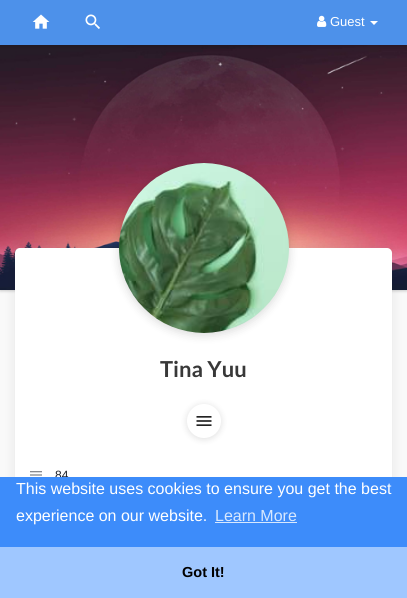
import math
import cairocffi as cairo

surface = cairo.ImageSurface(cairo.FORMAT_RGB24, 407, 598)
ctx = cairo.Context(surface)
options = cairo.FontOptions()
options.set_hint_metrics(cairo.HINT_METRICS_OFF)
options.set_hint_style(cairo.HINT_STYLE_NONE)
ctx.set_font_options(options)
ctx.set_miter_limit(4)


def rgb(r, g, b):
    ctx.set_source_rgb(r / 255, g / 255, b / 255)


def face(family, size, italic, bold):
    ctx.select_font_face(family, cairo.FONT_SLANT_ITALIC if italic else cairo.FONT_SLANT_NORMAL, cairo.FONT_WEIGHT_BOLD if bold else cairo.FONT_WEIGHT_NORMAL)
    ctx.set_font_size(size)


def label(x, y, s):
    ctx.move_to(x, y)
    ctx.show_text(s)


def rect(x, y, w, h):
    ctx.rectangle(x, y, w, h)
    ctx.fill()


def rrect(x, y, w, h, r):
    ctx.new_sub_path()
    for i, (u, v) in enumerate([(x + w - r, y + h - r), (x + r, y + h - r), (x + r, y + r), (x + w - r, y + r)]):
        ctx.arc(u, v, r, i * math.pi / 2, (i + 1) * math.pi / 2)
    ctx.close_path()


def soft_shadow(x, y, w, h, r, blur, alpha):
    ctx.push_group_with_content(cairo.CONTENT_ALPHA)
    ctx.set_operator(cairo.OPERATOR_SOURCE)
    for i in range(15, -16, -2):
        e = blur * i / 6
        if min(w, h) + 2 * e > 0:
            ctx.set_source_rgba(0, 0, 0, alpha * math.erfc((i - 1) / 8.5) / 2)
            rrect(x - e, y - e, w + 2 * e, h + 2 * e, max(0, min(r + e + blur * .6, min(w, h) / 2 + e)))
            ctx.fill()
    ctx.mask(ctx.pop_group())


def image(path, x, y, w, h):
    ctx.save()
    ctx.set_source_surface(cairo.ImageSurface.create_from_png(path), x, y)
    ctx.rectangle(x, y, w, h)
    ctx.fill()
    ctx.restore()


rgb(249, 249, 249)
ctx.paint()
rgb(0, 0, 0)
soft_shadow(0, 46, 407, 245, 0, 1.5, 0.2)
image('image3.png', 0, 45, 407, 245)
soft_shadow(0, 1, 407, 45, 0, 2, 0.2)
rgb(77, 145, 234)
rect(0, 0, 407, 45)
image('image0.png', 32, 14, 18, 15)
image('image1.png', 85, 14, 15, 15)
image('image2.png', 317, 15, 10, 12)
face('Liberation Sans', 13, 0, 0)
rgb(255, 255, 255)
label(330, 26, 'Guest')
ctx.new_path()
ctx.move_to(370, 21)
ctx.line_to(378, 21)
ctx.line_to(374, 25)
ctx.close_path()
ctx.fill()
rgb(0, 0, 0)
soft_shadow(15, 249, 377, 326, 5, 6.5, 0.08)
rgb(255, 255, 255)
rrect(15, 248, 377, 326, 5)
ctx.fill()
rgb(0, 0, 0)
soft_shadow(119, 165, 170, 170, 85, 5, 0.15)
image('image4.png', 119, 163, 170, 170)
face('Lato', 22, 0, 1)
rgb(56, 56, 56)
label(160, 377, 'Tina Yuu')
rgb(0, 0, 0)
soft_shadow(187, 405, 34, 34, 17, 3.5, 0.13)
rgb(255, 255, 255)
ctx.arc(204, 421, 17, 0, 2 * math.pi)
ctx.fill()
image('image5.png', 196, 416, 16, 10)
image('image6.png', 30, 471, 12, 5)
face('Liberation Sans', 12, 0, 0)
rgb(29, 33, 41)
label(55, 479, '84')
rgb(61, 140, 250)
rect(0, 477, 407, 70)
face('Liberation Sans', 16, 0, 0)
rgb(255, 255, 255)
label(16, 494, 'This website uses cookies to ensure you get the best')
label(16, 521, 'experience on our website.')
rgb(216, 232, 254)
label(215, 521, 'Learn More')
rect(215, 522, 82, 1)
rgb(159, 199, 255)
rect(0, 547, 407, 51)
face('Liberation Sans', 14.5, 0, 1)
rgb(0, 0, 0)
label(182, 577, 'Got It!')
surface.write_to_png('render.png')
